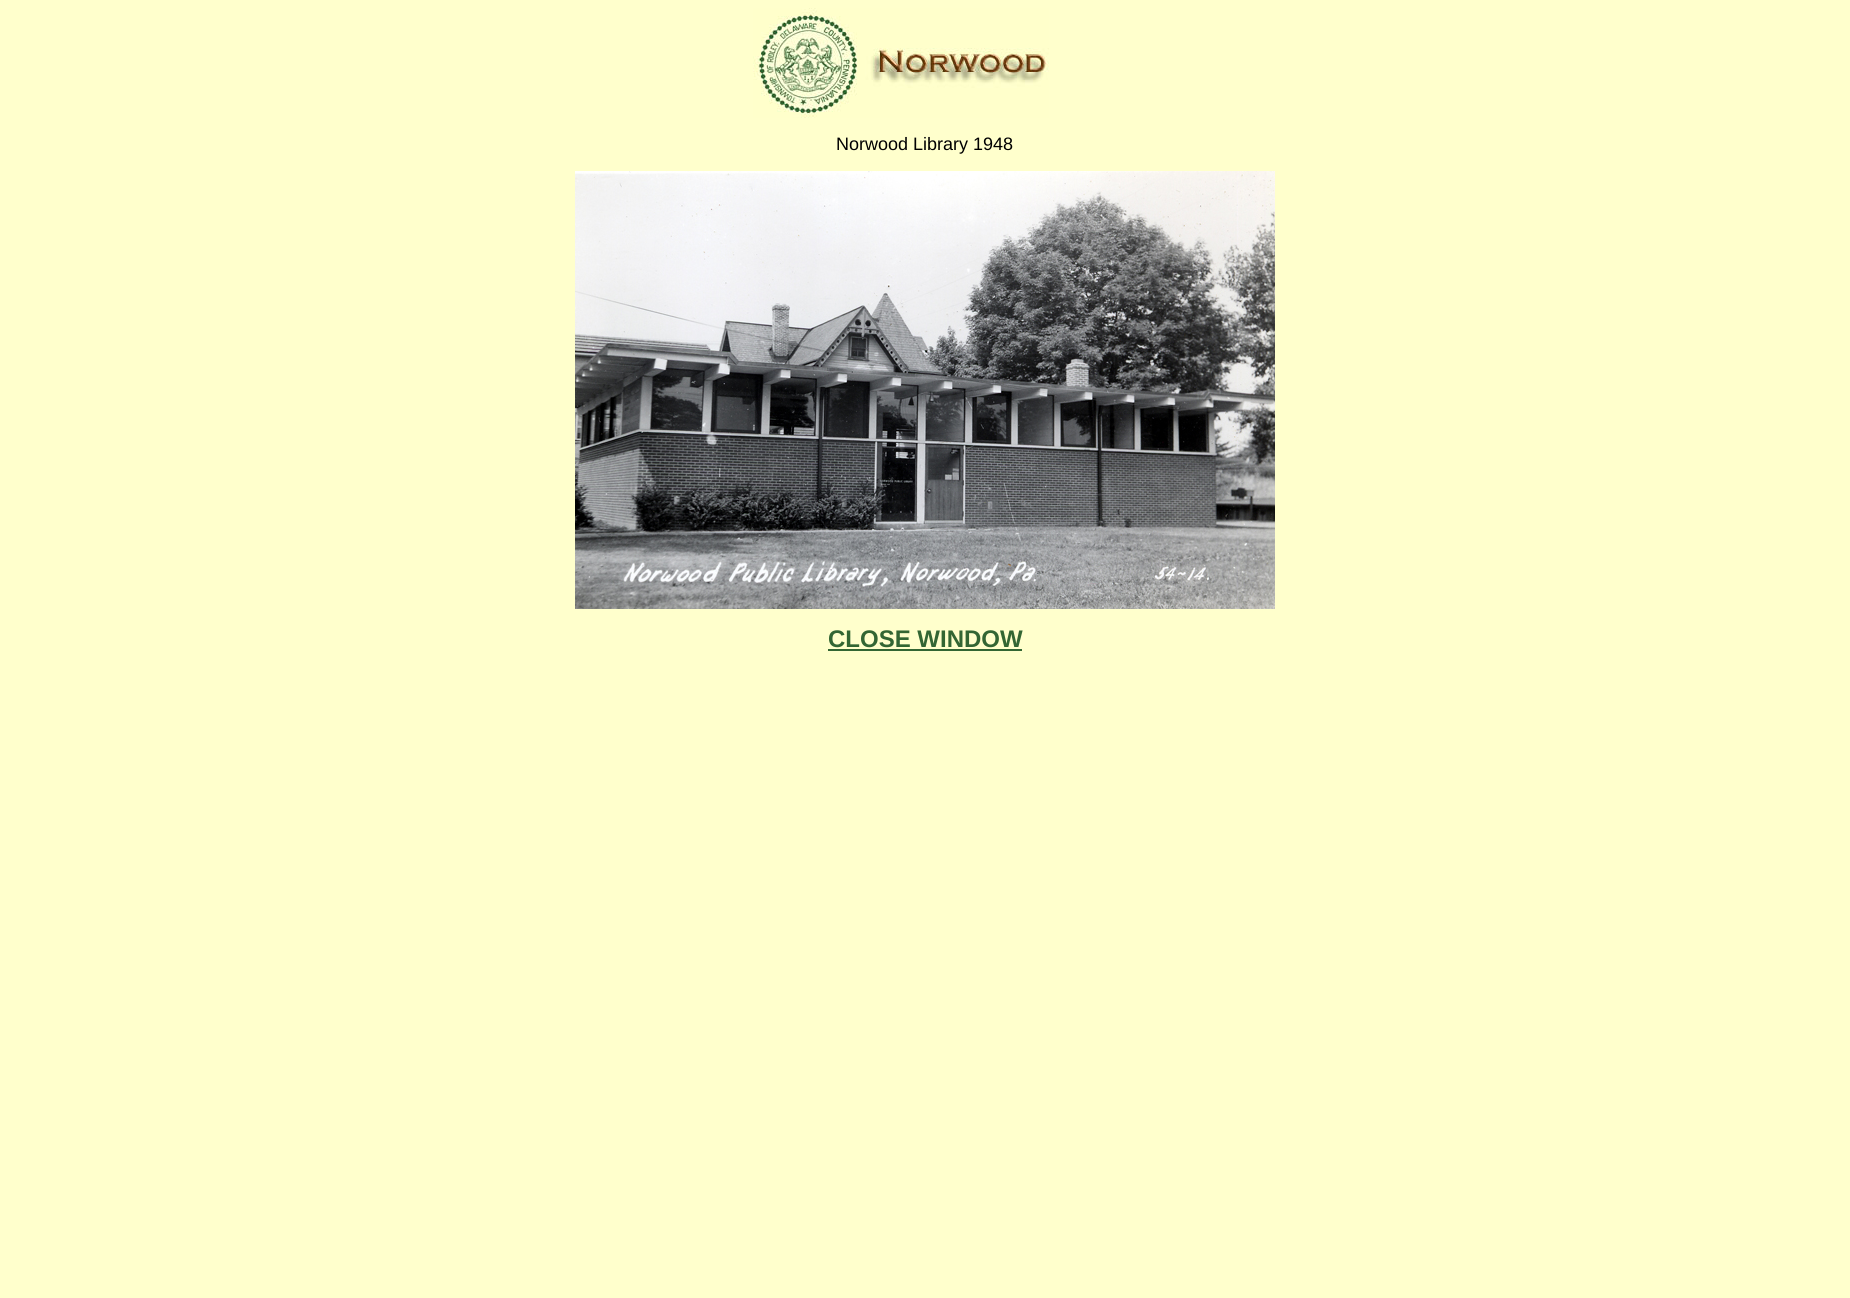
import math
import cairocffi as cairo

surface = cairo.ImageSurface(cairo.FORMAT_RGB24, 1850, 1298)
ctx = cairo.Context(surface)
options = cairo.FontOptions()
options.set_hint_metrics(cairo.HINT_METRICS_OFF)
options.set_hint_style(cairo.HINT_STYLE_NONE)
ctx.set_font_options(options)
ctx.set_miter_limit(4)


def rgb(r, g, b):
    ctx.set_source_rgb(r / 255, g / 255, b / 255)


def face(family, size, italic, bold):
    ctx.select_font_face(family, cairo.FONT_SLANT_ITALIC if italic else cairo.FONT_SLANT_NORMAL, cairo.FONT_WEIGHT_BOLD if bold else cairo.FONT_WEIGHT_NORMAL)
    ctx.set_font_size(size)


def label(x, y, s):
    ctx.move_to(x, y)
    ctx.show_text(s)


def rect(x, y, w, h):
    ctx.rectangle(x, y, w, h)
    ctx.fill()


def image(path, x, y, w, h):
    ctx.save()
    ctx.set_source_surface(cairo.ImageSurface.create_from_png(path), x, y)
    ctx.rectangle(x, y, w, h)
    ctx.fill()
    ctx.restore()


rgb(255, 255, 204)
ctx.paint()
image('image0.png', 753, 8, 296, 110)
face('Liberation Sans', 18, 0, 0)
rgb(0, 0, 0)
label(836, 150, 'Norwood Library 1948')
image('image1.png', 575, 171, 700, 438)
face('Liberation Sans', 24, 0, 1)
rgb(51, 102, 51)
label(828, 647, 'CLOSE WINDOW')
rect(828, 649, 194, 2)
surface.write_to_png('render.png')
